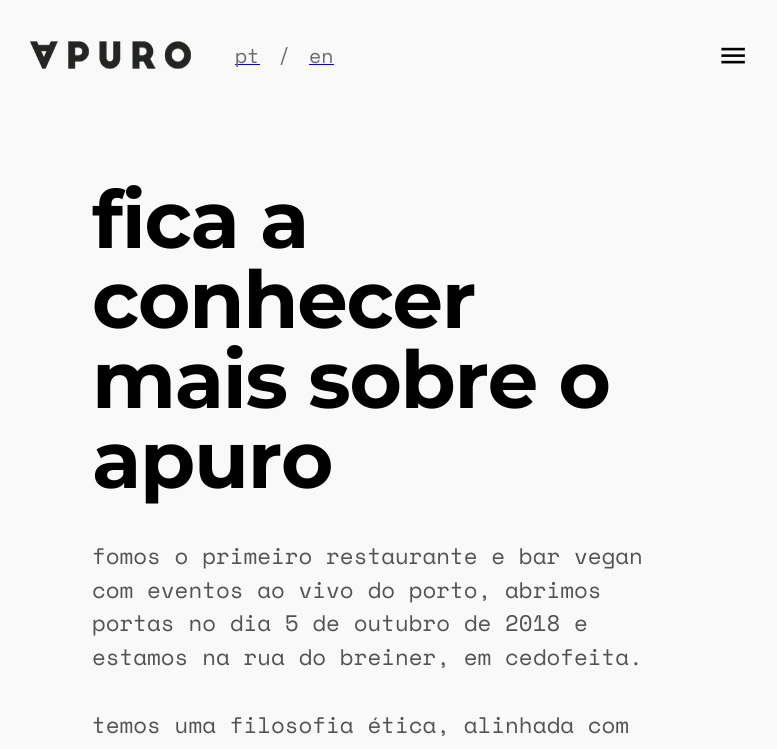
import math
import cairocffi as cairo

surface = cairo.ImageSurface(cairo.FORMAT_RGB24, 777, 749)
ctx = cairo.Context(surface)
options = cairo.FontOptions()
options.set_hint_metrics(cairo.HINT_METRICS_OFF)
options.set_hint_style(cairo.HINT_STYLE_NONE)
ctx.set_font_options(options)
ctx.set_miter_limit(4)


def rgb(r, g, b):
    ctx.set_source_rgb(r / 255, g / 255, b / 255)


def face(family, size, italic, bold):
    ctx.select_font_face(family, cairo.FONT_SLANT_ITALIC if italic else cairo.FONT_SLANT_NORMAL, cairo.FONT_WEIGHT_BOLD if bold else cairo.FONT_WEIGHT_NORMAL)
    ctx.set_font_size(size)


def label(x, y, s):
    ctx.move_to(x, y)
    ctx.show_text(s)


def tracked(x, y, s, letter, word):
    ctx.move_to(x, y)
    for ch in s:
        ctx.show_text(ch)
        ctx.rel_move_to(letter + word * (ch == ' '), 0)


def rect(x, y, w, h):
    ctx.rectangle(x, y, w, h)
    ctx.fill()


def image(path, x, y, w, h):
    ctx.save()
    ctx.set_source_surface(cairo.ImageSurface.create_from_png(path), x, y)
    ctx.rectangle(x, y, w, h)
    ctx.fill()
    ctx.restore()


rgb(249, 249, 249)
ctx.paint()
image('image0.png', 30, 41, 161, 28)
rgb(0, 0, 238)
rect(235, 64, 25, 1)
face('Space Mono', 20, 0, 0)
rgb(107, 107, 108)
label(235, 63, 'pt')
label(278, 63, '/')
label(309, 63, 'en')
rgb(0, 0, 238)
rect(309, 64, 25, 1)
image('image1.png', 721, 47, 24, 17)
face('Montserrat', 80, 0, 1)
rgb(0, 0, 0)
tracked(92, 248, 'fica a', -1.25, 0)
tracked(92, 328, 'conhecer', -1.25, 0)
tracked(92, 408, 'mais sobre o', -1.25, 0)
tracked(92, 488, 'apuro', -1.25, 0)
face('Space Mono', 22.5, 0, 0)
rgb(83, 83, 83)
label(92, 564, 'fomos o primeiro restaurante e bar vegan')
label(92, 598, 'com eventos ao vivo do porto, abrimos')
label(92, 631, 'portas no dia 5 de outubro de 2018 e')
label(92, 665, 'estamos na rua do breiner, em cedofeita.')
label(92, 733, 'temos uma filosofia ética, alinhada com')
surface.write_to_png('render.png')
